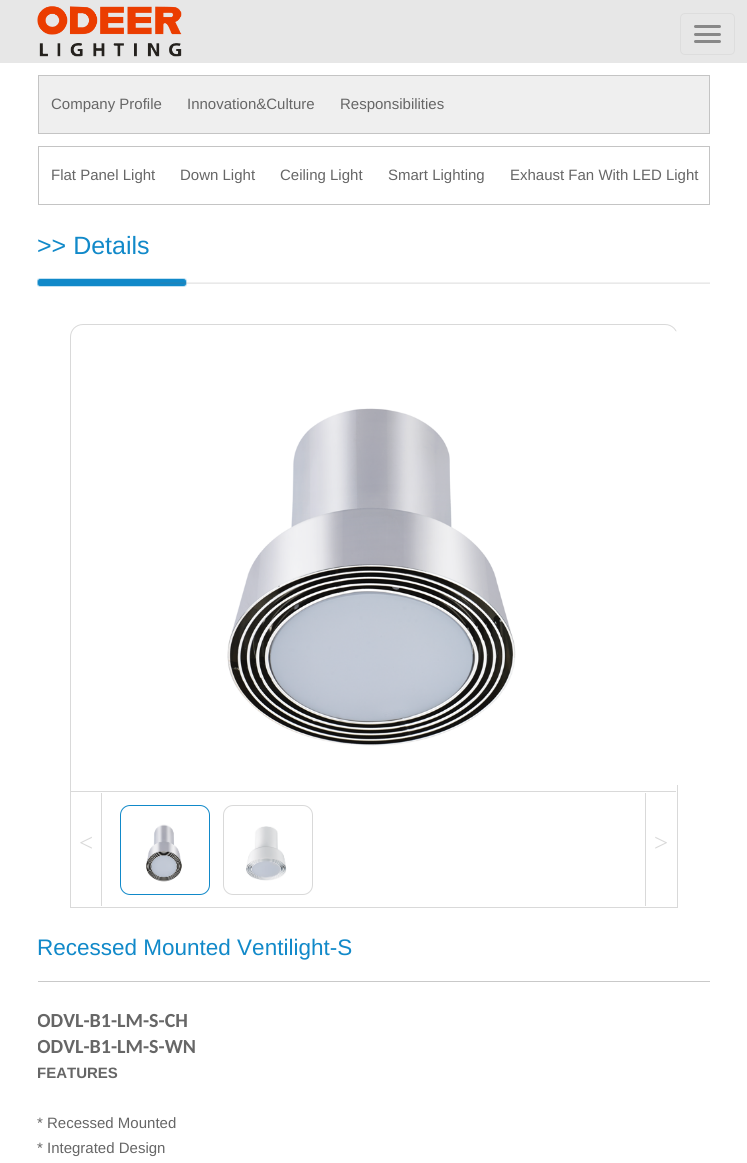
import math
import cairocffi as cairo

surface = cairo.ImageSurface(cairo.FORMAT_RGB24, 747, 1163)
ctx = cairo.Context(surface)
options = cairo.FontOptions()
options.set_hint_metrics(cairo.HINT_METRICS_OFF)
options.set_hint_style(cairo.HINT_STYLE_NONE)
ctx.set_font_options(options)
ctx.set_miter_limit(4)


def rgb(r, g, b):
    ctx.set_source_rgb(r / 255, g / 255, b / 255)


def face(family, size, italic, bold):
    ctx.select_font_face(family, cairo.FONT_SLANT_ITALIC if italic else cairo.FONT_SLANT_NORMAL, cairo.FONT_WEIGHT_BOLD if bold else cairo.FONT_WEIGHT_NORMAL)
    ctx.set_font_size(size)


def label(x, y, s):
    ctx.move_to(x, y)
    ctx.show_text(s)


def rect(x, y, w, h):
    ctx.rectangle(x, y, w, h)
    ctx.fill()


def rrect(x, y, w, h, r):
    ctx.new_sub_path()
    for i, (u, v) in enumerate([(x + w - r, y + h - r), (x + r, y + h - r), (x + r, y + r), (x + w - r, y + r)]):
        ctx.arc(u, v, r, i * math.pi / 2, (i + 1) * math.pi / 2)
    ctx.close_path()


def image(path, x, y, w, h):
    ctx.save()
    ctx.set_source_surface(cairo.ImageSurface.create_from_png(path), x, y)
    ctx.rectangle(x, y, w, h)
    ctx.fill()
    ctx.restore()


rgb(255, 255, 255)
ctx.paint()
rgb(231, 231, 231)
rect(0, 0, 747, 63)
image('image0.png', 37, 6, 145, 51)
rrect(680.5, 13.5, 54, 41, 4.5)
rgb(221, 221, 221)
ctx.set_line_width(1)
ctx.stroke()
rgb(136, 136, 136)
rrect(694, 25, 27, 3, 1.5)
ctx.fill()
rrect(694, 33, 27, 3, 1.5)
ctx.fill()
rrect(694, 40, 27, 3, 1.5)
ctx.fill()
rgb(239, 239, 239)
ctx.rectangle(38.5, 75.5, 671, 58)
ctx.fill_preserve()
rgb(196, 196, 196)
ctx.stroke()
face('Liberation Sans', 15, 0, 0)
rgb(102, 102, 102)
label(51, 109, 'Company Profile')
label(187, 109, 'Innovation&Culture')
label(340, 109, 'Responsibilities')
ctx.rectangle(38.5, 146.5, 671, 58)
rgb(196, 196, 196)
ctx.stroke()
rgb(102, 102, 102)
label(51, 180, 'Flat Panel Light')
label(180, 180, 'Down Light')
label(280, 180, 'Ceiling Light')
label(388, 180, 'Smart Lighting')
label(510, 180, 'Exhaust Fan With LED Light')
image('image1.png', 37, 278, 673, 9)
face('Liberation Sans', 25, 0, 0)
rgb(17, 137, 201)
label(37, 254, '>> Details')
ctx.new_path()
ctx.move_to(83, 324.5)
ctx.line_to(665, 324.5)
ctx.curve_to(672, 324.5, 677.5, 330, 677.5, 337)
ctx.line_to(677.5, 907.5)
ctx.line_to(70.5, 907.5)
ctx.line_to(70.5, 337)
ctx.curve_to(70.5, 330, 76, 324.5, 83, 324.5)
ctx.close_path()
rgb(217, 217, 217)
ctx.stroke()
image('image2.png', 227, 331, 451, 454)
rect(71, 791, 605, 1)
rect(101, 793, 1, 113)
face('Liberation Serif', 25, 0, 0)
label(79, 851, '<')
rrect(120.5, 805.5, 89, 89, 9.5)
rgb(17, 137, 201)
ctx.stroke()
image('image3.png', 146, 824, 36, 58)
rrect(223.5, 805.5, 89, 89, 9.5)
rgb(217, 217, 217)
ctx.stroke()
image('image4.png', 246, 826, 41, 55)
rect(645, 793, 1, 113)
label(654, 851, '>')
rgb(201, 201, 201)
rect(38, 981, 672, 1)
face('Liberation Sans', 22.5, 0, 0)
rgb(17, 137, 201)
label(37, 955, 'Recessed Mounted Ventilight-S')
ctx.save()
ctx.rectangle(38, 1008, 672, 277)
ctx.clip()
face('Carlito', 20, 0, 1)
rgb(102, 102, 102)
label(37, 1027, 'ODVL-B1-LM-S-CH')
label(37, 1053, 'ODVL-B1-LM-S-WN')
ctx.restore()
face('Liberation Sans', 15, 0, 1)
rgb(102, 102, 102)
label(37, 1078, 'FEATURES')
face('Liberation Sans', 15, 0, 0)
label(37, 1128, '* Recessed Mounted')
label(37, 1153, '* Integrated Design')
surface.write_to_png('render.png')
